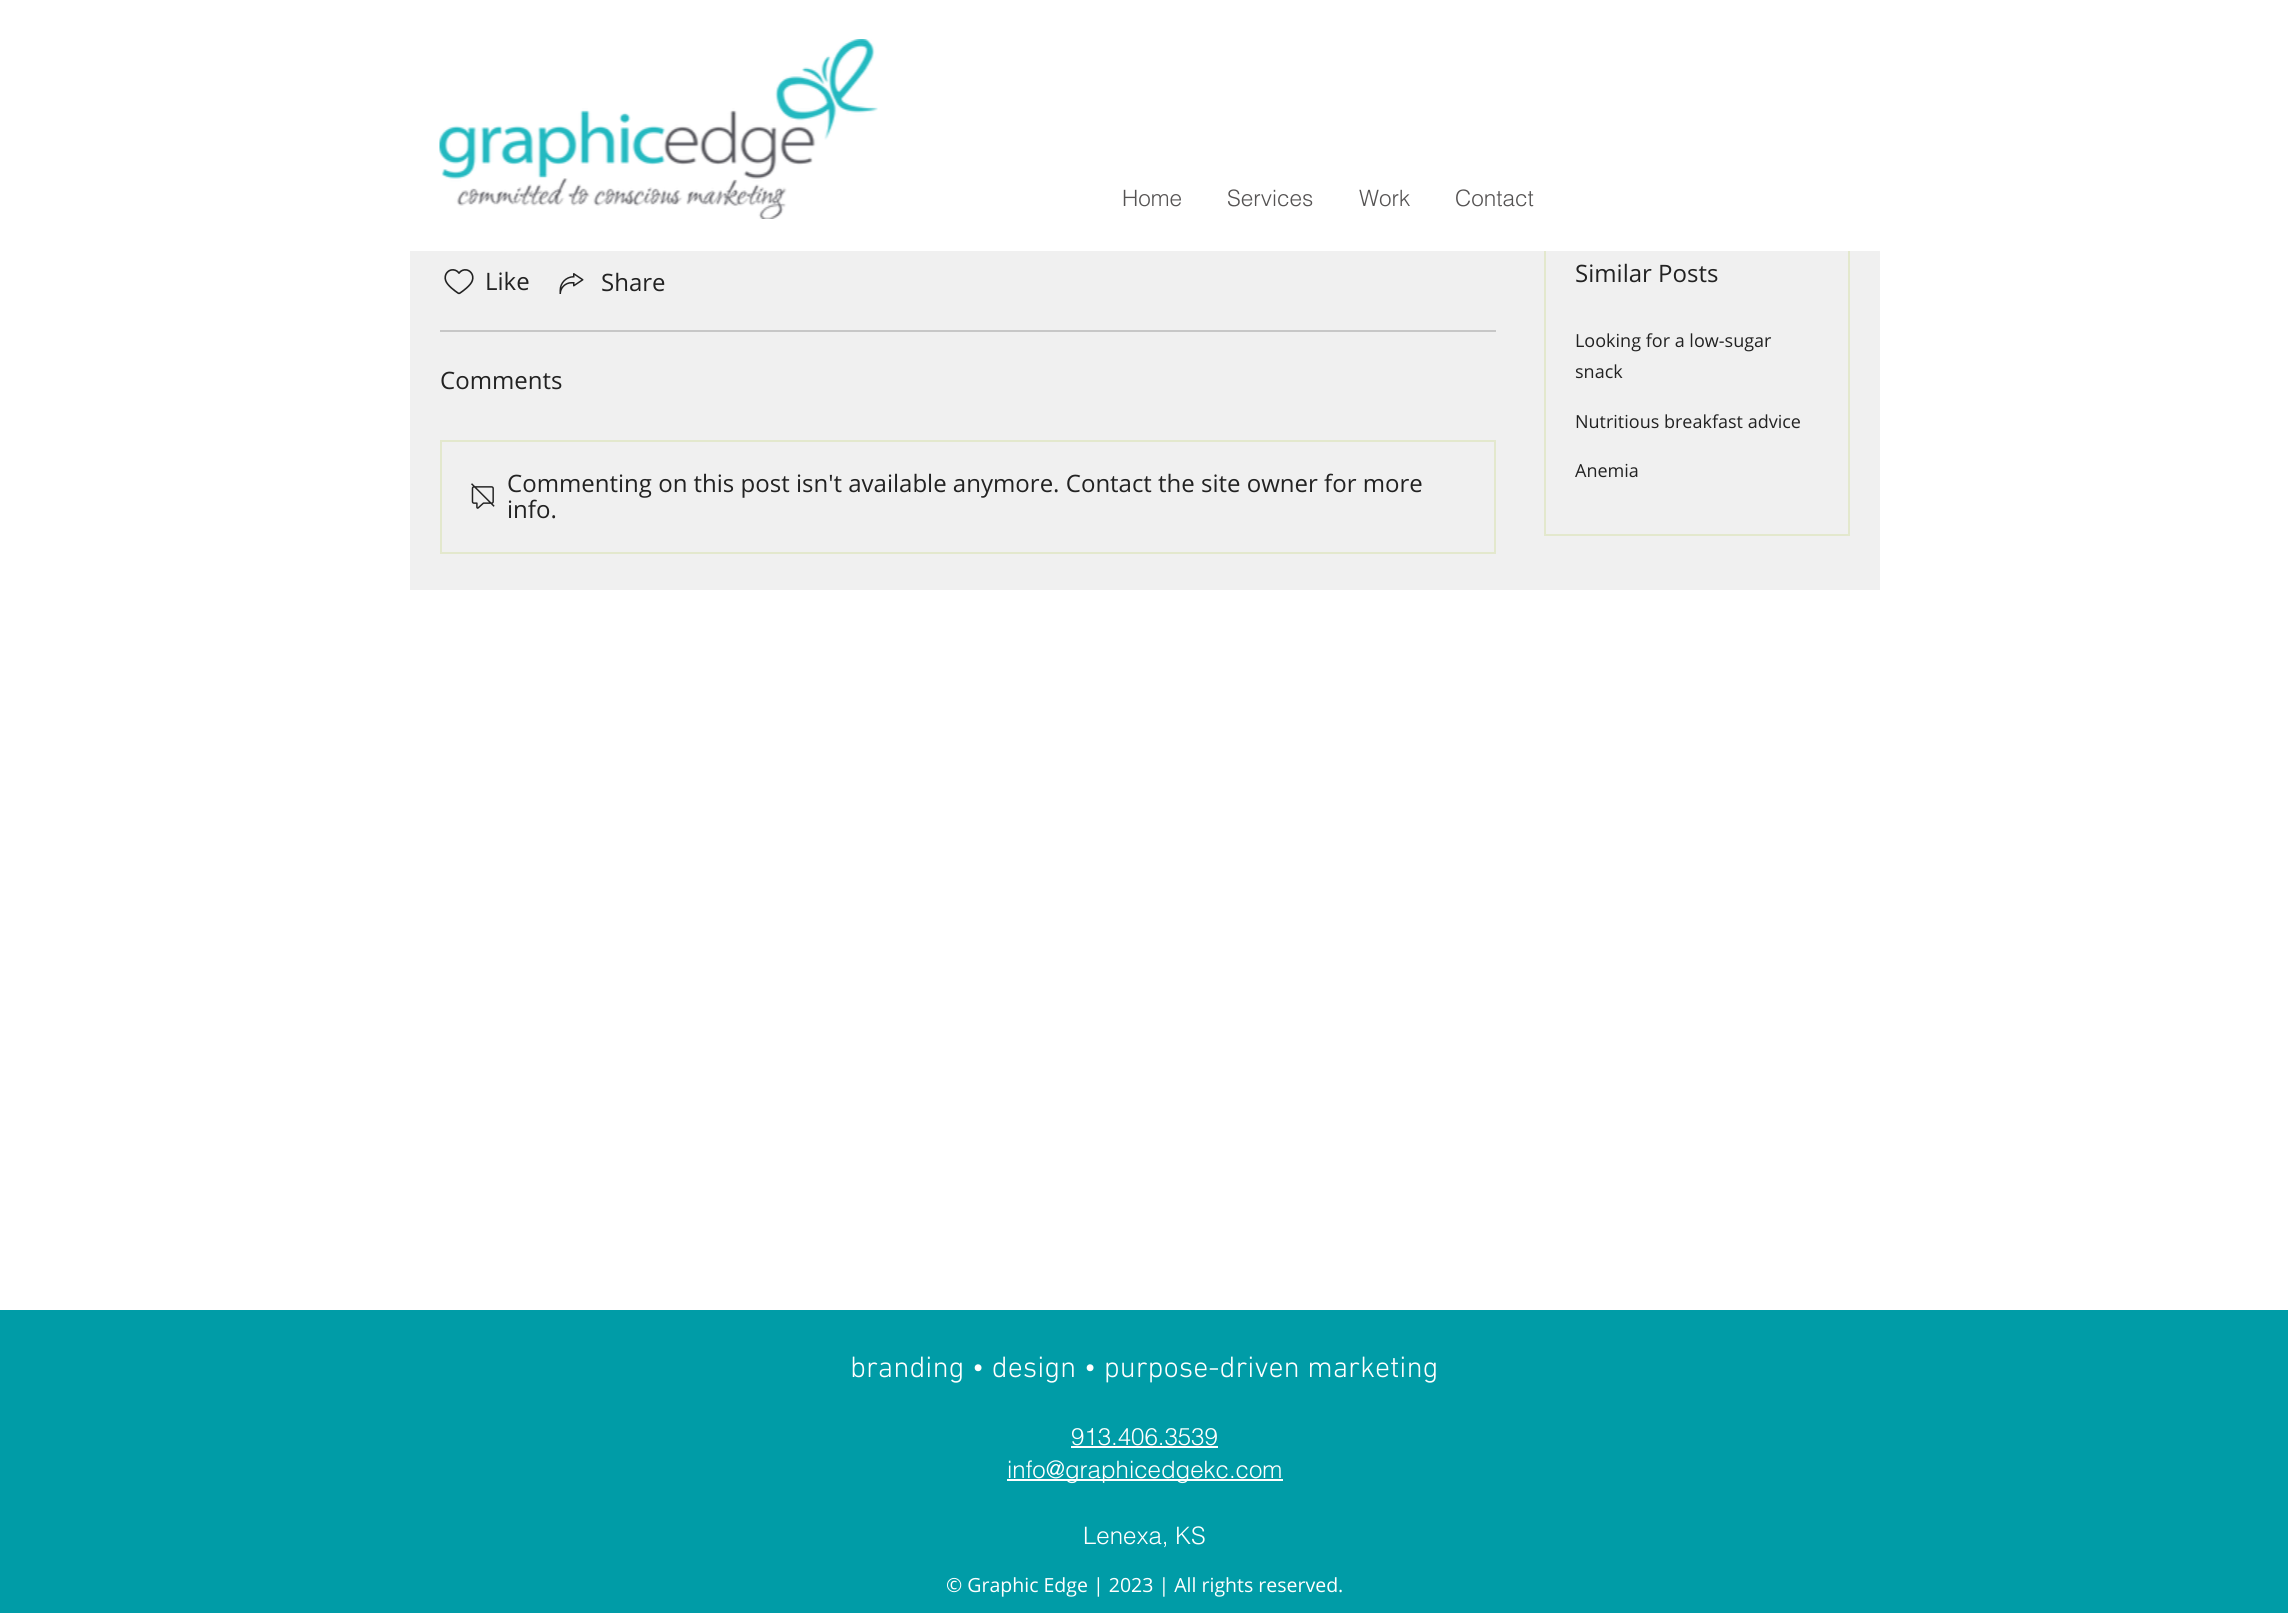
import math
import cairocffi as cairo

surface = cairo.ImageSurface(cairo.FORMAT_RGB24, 2288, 1613)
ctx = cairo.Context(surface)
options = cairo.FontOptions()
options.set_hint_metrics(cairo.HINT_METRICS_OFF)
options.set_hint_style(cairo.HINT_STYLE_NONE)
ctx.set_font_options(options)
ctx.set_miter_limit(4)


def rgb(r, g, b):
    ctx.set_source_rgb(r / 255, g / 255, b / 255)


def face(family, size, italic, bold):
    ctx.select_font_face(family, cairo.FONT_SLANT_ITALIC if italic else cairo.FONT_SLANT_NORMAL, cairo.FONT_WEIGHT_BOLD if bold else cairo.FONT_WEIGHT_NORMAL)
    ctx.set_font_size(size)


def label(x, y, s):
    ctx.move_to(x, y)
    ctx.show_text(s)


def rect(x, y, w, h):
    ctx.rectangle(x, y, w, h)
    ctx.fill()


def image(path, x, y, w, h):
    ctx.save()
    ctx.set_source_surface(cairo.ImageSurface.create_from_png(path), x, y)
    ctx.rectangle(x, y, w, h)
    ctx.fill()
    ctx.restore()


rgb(255, 255, 255)
ctx.paint()
image('image0.png', 439, 39, 439, 180)
face('helvetica Light', 22.5, 0, 0)
rgb(85, 83, 83)
label(1122, 206, 'Home')
label(1227, 206, 'Services')
label(1359, 206, 'Work')
label(1455, 206, 'Contact')
rgb(240, 240, 240)
rect(410, 251, 1470, 339)
ctx.rectangle(1545, 222, 304, 313)
rgb(227, 232, 205)
ctx.stroke()
rgb(255, 255, 255)
rect(1544, 221, 306, 30)
image('image1.png', 444, 269, 30, 26)
face('Open Sans', 24, 0, 0)
rgb(34, 34, 34)
label(485, 290, 'Like')
image('image2.png', 559, 273, 25, 21)
label(601, 291, 'Share')
rgb(199, 199, 199)
rect(440, 330, 1056, 2)
rgb(34, 34, 34)
label(440, 389, 'Comments')
ctx.rectangle(441, 441, 1054, 112)
rgb(227, 232, 205)
ctx.stroke()
image('image3.png', 471, 483, 24, 26)
rgb(34, 34, 34)
label(507, 492, 'Commenting on this post isn\'t available anymore. Contact the site owner for more')
label(507, 518, 'info.')
label(1575, 282, 'Similar Posts')
face('Open Sans', 18, 0, 0)
label(1575, 347, 'Looking for a low-sugar')
label(1575, 378, 'snack')
label(1575, 428, 'Nutritious breakfast advice')
label(1575, 477, 'Anemia')
rgb(0, 156, 167)
rect(0, 1310, 2288, 303)
face('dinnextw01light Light', 30, 0, 0)
rgb(255, 255, 255)
label(850, 1377, 'branding • design • purpose-driven marketing')
face('helvetica Light', 24, 0, 0)
label(1071, 1445, '913.406.3539')
rect(1071, 1446, 147, 2)
rect(1007, 1479, 276, 2)
label(1007, 1478, 'info@graphicedgekc.com')
label(1083, 1544, 'Lenexa, KS')
face('Open Sans', 19.5, 0, 0)
label(946, 1592, '© Graphic Edge | 2023 | All rights reserved.')
surface.write_to_png('render.png')
